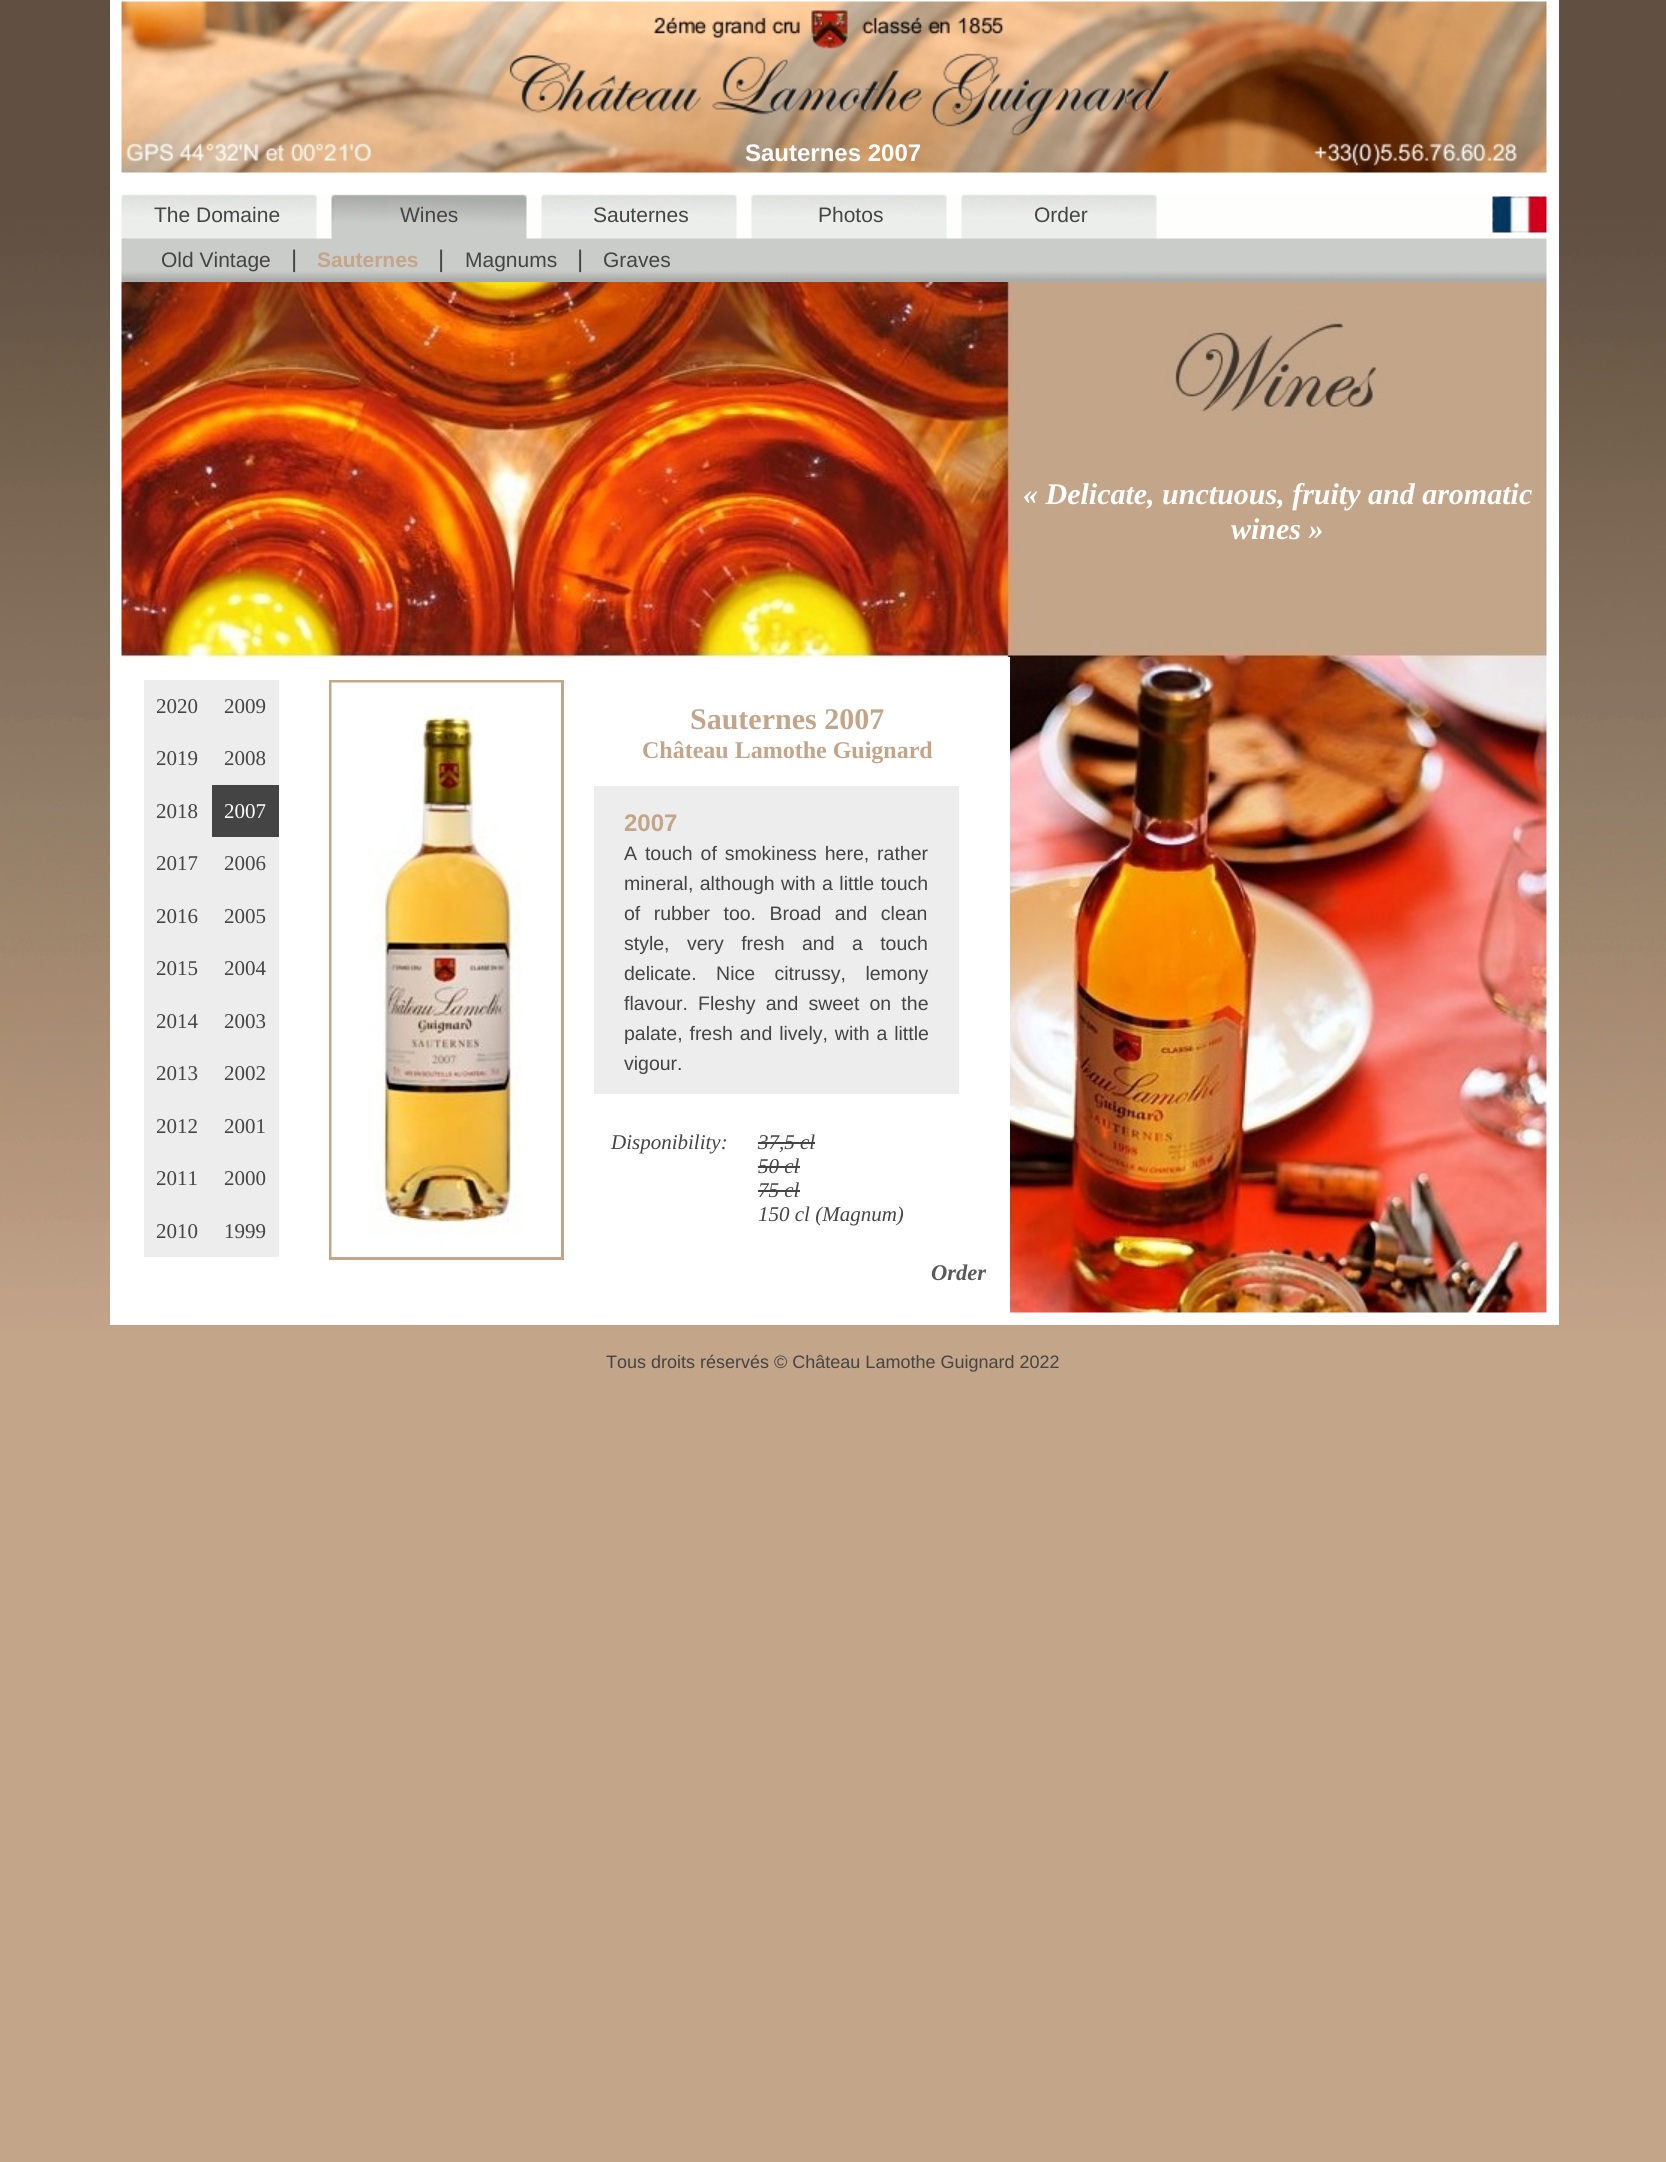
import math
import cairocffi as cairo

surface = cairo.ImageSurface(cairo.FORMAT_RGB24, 1666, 2162)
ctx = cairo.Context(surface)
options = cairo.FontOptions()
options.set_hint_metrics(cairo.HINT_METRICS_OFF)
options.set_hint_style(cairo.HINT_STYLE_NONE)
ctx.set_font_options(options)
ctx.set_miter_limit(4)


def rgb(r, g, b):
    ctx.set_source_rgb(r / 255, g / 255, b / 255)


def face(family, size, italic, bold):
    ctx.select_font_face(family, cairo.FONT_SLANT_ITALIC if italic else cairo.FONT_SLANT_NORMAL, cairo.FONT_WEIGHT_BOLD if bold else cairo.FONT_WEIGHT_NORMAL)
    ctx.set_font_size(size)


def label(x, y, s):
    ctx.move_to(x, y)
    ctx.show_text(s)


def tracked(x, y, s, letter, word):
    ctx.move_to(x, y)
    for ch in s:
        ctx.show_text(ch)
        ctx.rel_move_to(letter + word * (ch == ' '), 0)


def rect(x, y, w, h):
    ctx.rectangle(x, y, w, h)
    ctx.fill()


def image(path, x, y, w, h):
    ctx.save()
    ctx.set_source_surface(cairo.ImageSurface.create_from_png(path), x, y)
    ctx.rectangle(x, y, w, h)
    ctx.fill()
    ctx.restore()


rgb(195, 165, 137)
ctx.paint()
image('image0.png', 0, 0, 1666, 1329)
rgb(255, 255, 255)
rect(110, 0, 1449, 1325)
image('image1.png', 121, 1, 1426, 173)
face('Liberation Sans', 24, 0, 1)
label(745, 161, 'Sauternes 2007')
image('image2.png', 121, 194, 1426, 88)
face('Liberation Sans', 21, 0, 0)
rgb(68, 68, 68)
label(154, 222, 'The Domaine')
label(400, 222, 'Wines')
label(593, 222, 'Sauternes')
label(818, 222, 'Photos')
label(1034, 222, 'Order')
image('image3.png', 1492, 196, 55, 37)
label(161, 267, 'Old Vintage')
face('Liberation Sans', 24, 0, 0)
label(291, 267, '|')
face('Liberation Sans', 21, 0, 1)
rgb(195, 165, 137)
label(317, 267, 'Sauternes')
face('Liberation Sans', 24, 0, 0)
rgb(68, 68, 68)
label(438, 267, '|')
face('Liberation Sans', 21, 0, 0)
label(465, 267, 'Magnums')
face('Liberation Sans', 24, 0, 0)
label(577, 267, '|')
face('Liberation Sans', 21, 0, 0)
label(603, 267, 'Graves')
image('image4.png', 121, 282, 1426, 1031)
face('Liberation Serif', 30, 1, 1)
rgb(255, 255, 255)
label(1023, 504, '« Delicate, unctuous, fruity and aromatic')
label(1231, 539, 'wines »')
rect(122, 657, 888, 656)
rgb(237, 237, 237)
rect(144, 680, 68, 577)
face('Liberation Serif', 21, 0, 0)
rgb(68, 68, 68)
label(156, 713, '2020')
label(156, 765, '2019')
label(156, 818, '2018')
label(156, 870, '2017')
label(156, 923, '2016')
label(156, 975, '2015')
label(156, 1028, '2014')
label(156, 1080, '2013')
label(156, 1133, '2012')
label(156, 1185, '2011')
label(156, 1238, '2010')
rgb(237, 237, 237)
rect(212, 680, 67, 105)
rgb(68, 68, 68)
label(224, 713, '2009')
label(224, 765, '2008')
rect(212, 785, 67, 52)
rgb(255, 255, 255)
label(224, 818, '2007')
rgb(237, 237, 237)
rect(212, 837, 67, 420)
rgb(68, 68, 68)
label(224, 870, '2006')
label(224, 923, '2005')
label(224, 975, '2004')
label(224, 1028, '2003')
label(224, 1080, '2002')
label(224, 1133, '2001')
label(224, 1185, '2000')
label(224, 1238, '1999')
ctx.rectangle(330.5, 681.5, 232, 577)
rgb(195, 165, 137)
ctx.set_line_width(3)
ctx.stroke()
image('image5.png', 331, 682, 230, 575)
face('Liberation Serif', 30, 0, 1)
label(690, 729, 'Sauternes 2007')
face('Liberation Serif', 24, 0, 1)
label(642, 758, 'Château Lamothe Guignard')
rgb(237, 237, 237)
rect(594, 786, 365, 308)
face('Liberation Sans', 24, 0, 1)
rgb(195, 165, 137)
label(624, 831, '2007')
face('Liberation Sans', 19.5, 0, 0)
rgb(68, 68, 68)
tracked(624, 860, 'A touch of smokiness here, rather', 0, 2.5)
tracked(624, 890, 'mineral, although with a little touch', 0, 1)
tracked(624, 920, 'of rubber too. Broad and clean', 0, 8)
tracked(624, 950, 'style, very fresh and a touch', 0, 12)
tracked(624, 980, 'delicate. Nice citrussy, lemony', 0, 14)
tracked(624, 1010, 'flavour. Fleshy and sweet on the', 0, 4.75)
tracked(624, 1040, 'palate, fresh and lively, with a little', 0, 1.5)
label(624, 1070, 'vigour.')
face('Liberation Serif', 21, 1, 0)
label(611, 1149, 'Disponibility:')
label(758, 1149, '37,5 cl')
rect(758, 1142, 57, 2)
label(758, 1173, '50 cl')
rect(758, 1166, 42, 2)
label(758, 1197, '75 cl')
rect(758, 1190, 42, 2)
label(758, 1221, '150 cl (Magnum)')
face('Liberation Serif', 22.5, 1, 1)
rgb(89, 89, 89)
label(931, 1280, 'Order')
face('Liberation Sans', 18, 0, 0)
rgb(68, 68, 68)
label(606, 1368, 'Tous droits réservés © Château Lamothe Guignard 2022')
surface.write_to_png('render.png')
